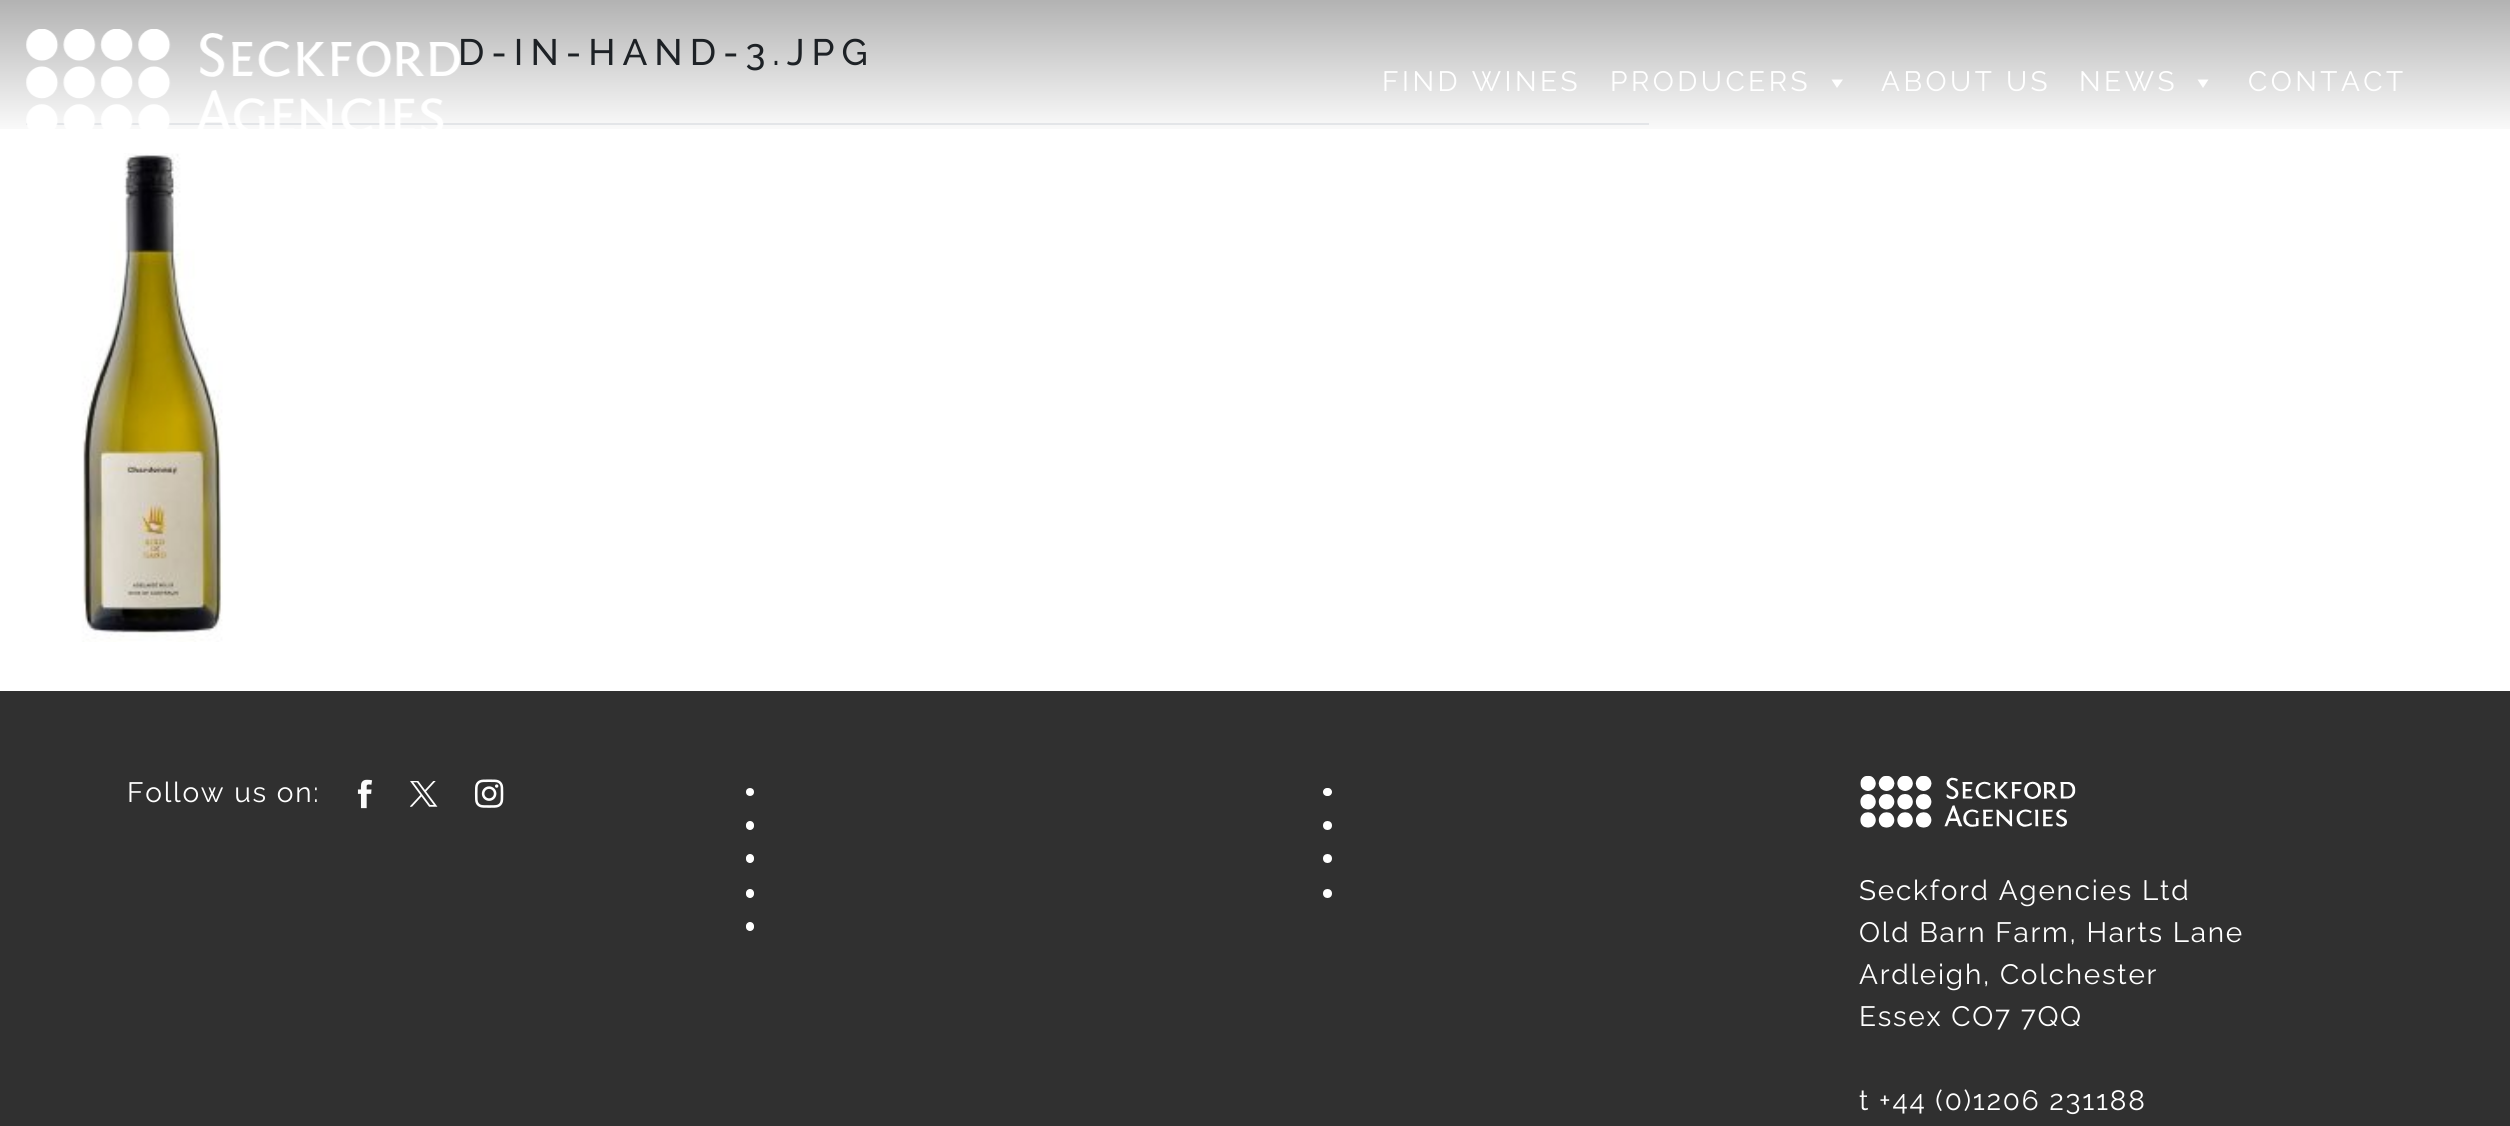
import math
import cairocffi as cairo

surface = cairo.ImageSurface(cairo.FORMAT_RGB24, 2510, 1126)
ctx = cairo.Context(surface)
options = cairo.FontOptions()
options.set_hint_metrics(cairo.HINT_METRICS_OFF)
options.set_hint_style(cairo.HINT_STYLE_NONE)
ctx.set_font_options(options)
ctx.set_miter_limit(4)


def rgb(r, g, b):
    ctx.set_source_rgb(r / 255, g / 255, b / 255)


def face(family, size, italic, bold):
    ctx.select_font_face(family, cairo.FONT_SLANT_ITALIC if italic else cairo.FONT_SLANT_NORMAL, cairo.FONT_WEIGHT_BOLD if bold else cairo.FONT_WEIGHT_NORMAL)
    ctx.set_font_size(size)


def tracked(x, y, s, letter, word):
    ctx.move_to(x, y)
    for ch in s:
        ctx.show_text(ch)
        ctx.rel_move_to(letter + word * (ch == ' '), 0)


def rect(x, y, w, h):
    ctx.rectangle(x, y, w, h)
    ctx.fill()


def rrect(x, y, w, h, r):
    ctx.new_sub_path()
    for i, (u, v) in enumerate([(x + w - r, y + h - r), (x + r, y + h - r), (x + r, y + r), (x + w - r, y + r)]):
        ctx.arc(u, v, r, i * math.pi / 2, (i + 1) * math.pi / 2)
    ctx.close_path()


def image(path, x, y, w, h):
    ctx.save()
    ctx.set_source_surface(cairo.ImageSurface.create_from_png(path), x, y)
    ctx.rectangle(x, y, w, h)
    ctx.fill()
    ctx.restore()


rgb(255, 255, 255)
ctx.paint()
rgb(234, 236, 239)
rect(26, 123, 1623, 2)
face('Raleway Medium', 36.75, 0, 0)
rgb(36, 41, 46)
tracked(458, 65, 'D-IN-HAND-3.JPG', 7, 0)
image('image0.png', 81, 153, 142, 489)
gradient = cairo.LinearGradient(1256, 0, 1256, 165)
gradient.add_color_stop_rgba(0, 0, 0, 0, 0.3)
gradient.add_color_stop_rgba(0.84, 0, 0, 0, 0)
ctx.set_source(gradient)
rect(0, 0, 2510, 129)
image('image1.png', 26, 29, 435, 101)
face('Raleway', 28, 0, 0)
rgb(255, 255, 255)
tracked(1382, 91, 'FIND WINES', 3.5, 0)
tracked(1610, 91, 'PRODUCERS', 3.5, 0)
ctx.new_path()
ctx.move_to(1843, 79.5)
ctx.line_to(1837, 88)
ctx.line_to(1831.5, 79.5)
ctx.close_path()
ctx.fill()
tracked(1881, 91, 'ABOUT US', 3.5, 0)
tracked(2079, 91, 'NEWS', 3.5, 0)
ctx.new_path()
ctx.move_to(2208.5, 79.5)
ctx.line_to(2203, 88)
ctx.line_to(2197.5, 79.5)
ctx.close_path()
ctx.fill()
tracked(2248, 91, 'CONTACT', 3.5, 0)
rgb(48, 48, 48)
rect(0, 691, 2510, 435)
rgb(255, 255, 255)
tracked(127, 802, 'Follow us on:', 1.75, 0)
image('image2.png', 357, 779, 16, 30)
image('image3.png', 410, 781, 28, 26)
image('image4.png', 474, 779, 30, 29)
ctx.arc(750, 792, 4, 0, 2 * math.pi)
ctx.fill()
rrect(746, 821, 8, 9, 4)
ctx.fill()
rrect(746, 854, 8, 9, 4)
ctx.fill()
rrect(746, 889, 8, 9, 4)
ctx.fill()
rrect(746, 922, 8, 9, 4)
ctx.fill()
rrect(1323, 788, 9, 8, 4)
ctx.fill()
ctx.arc(1327.5, 825.5, 4.5, 0, 2 * math.pi)
ctx.fill()
ctx.arc(1327.5, 858.5, 4.5, 0, 2 * math.pi)
ctx.fill()
ctx.arc(1327.5, 893.5, 4.5, 0, 2 * math.pi)
ctx.fill()
image('image5.png', 1860, 775, 216, 53)
tracked(1859, 900, 'Seckford Agencies Ltd', 1.75, 0)
tracked(1859, 942, 'Old Barn Farm, Harts Lane', 1.75, 0)
tracked(1859, 984, 'Ardleigh, Colchester', 1.75, 0)
tracked(1859, 1026, 'Essex CO7 7QQ', 1.75, 0)
tracked(1859, 1110, 't +44 (0)1206 231188', 1.75, 0)
surface.write_to_png('render.png')
